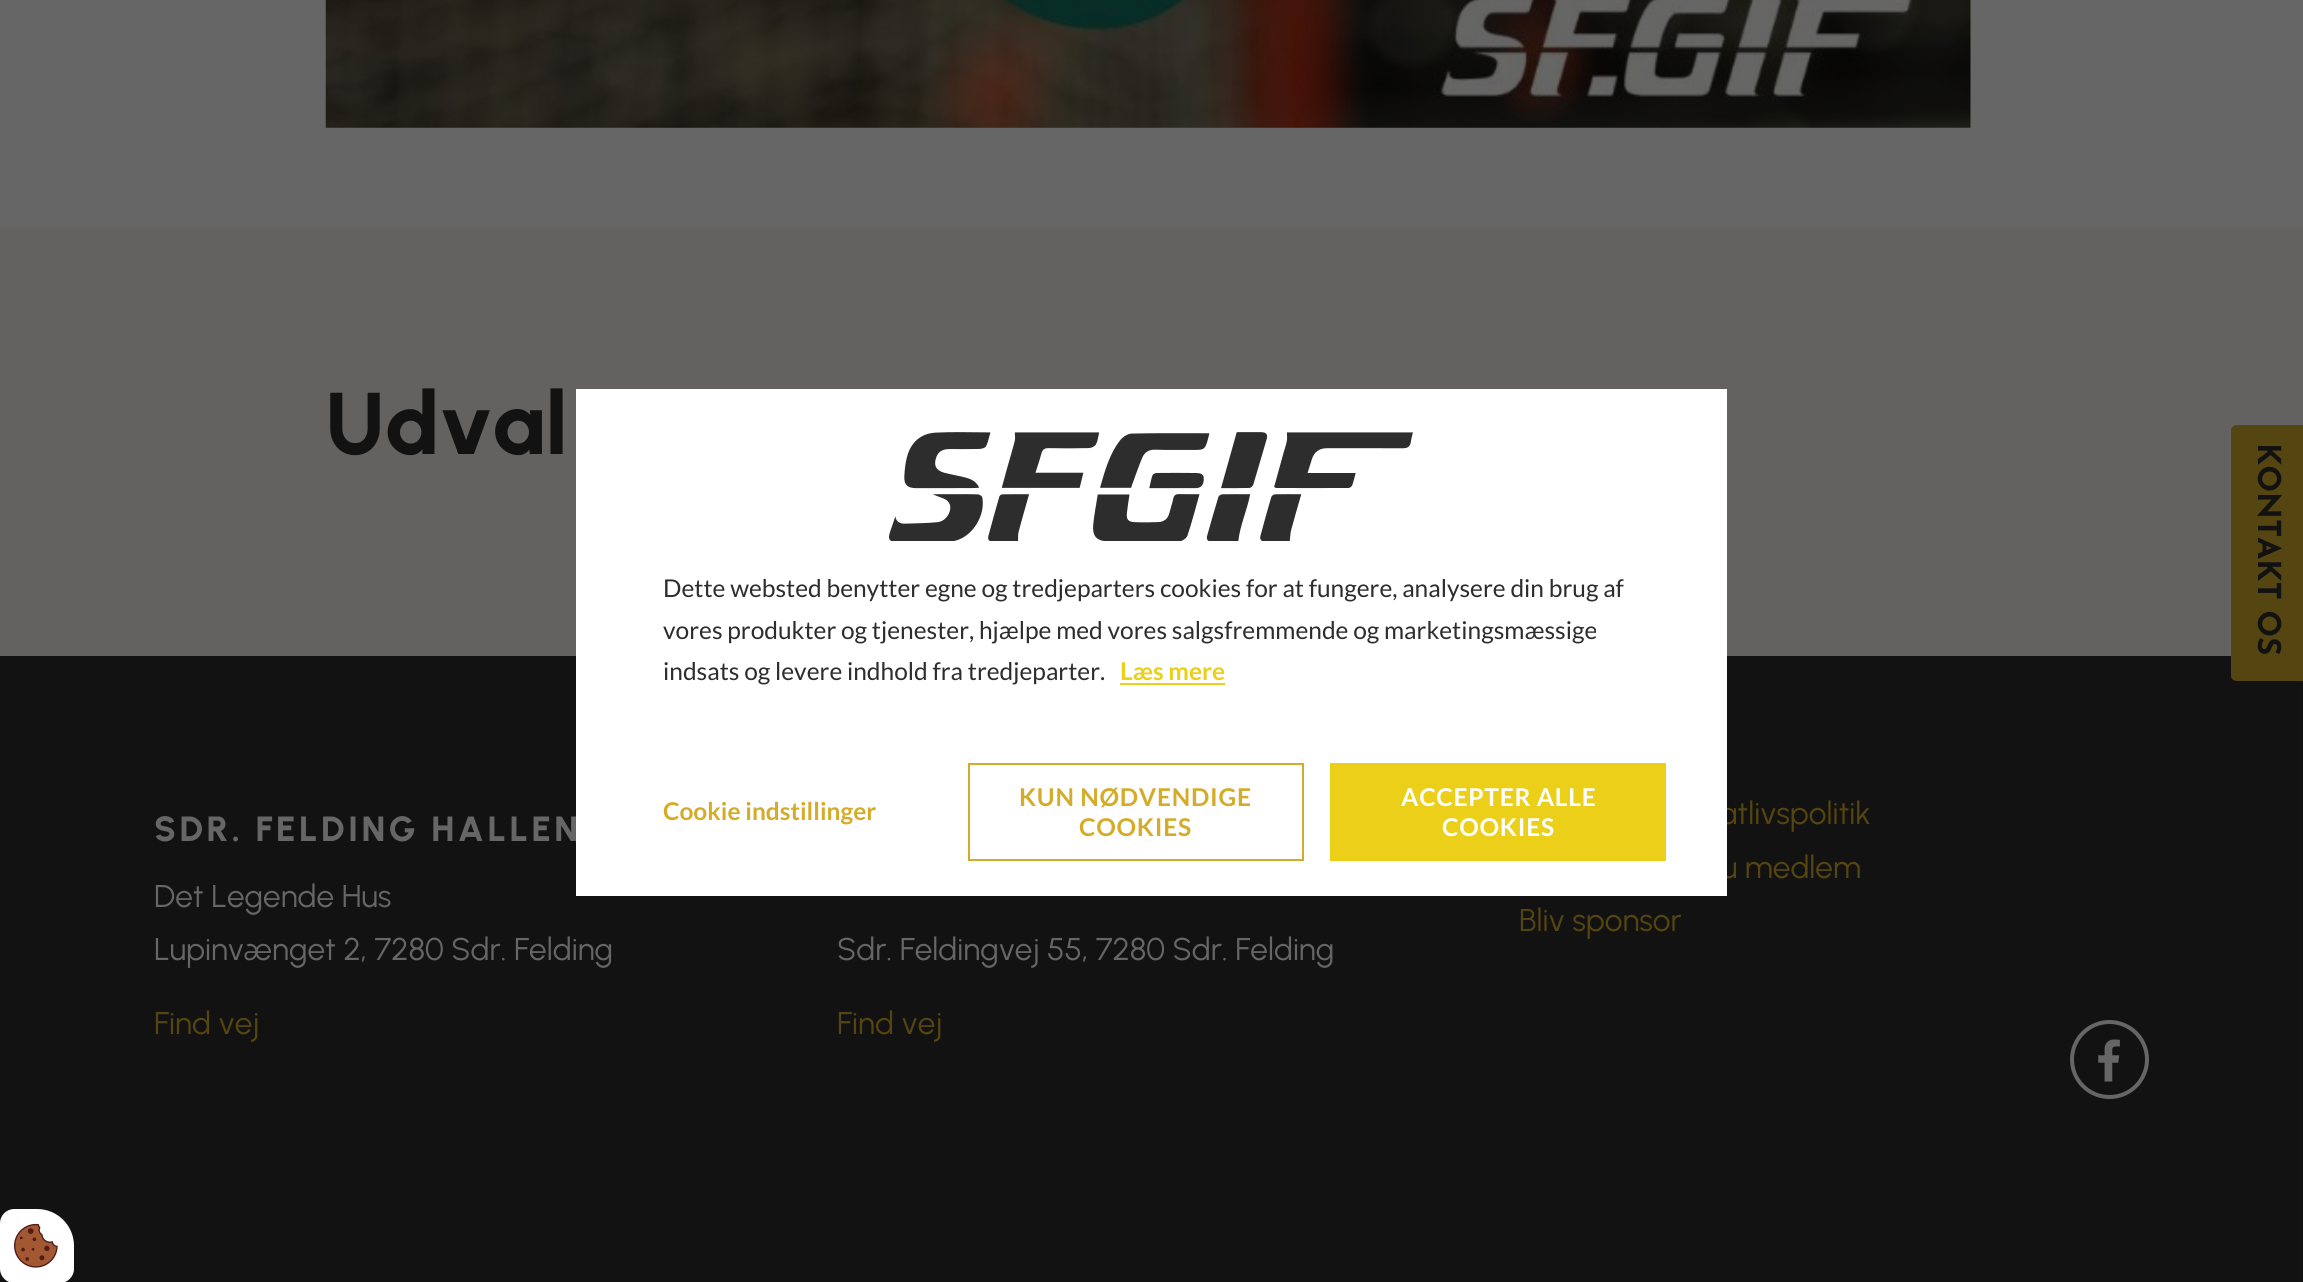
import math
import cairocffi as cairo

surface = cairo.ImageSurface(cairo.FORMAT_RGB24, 2303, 1282)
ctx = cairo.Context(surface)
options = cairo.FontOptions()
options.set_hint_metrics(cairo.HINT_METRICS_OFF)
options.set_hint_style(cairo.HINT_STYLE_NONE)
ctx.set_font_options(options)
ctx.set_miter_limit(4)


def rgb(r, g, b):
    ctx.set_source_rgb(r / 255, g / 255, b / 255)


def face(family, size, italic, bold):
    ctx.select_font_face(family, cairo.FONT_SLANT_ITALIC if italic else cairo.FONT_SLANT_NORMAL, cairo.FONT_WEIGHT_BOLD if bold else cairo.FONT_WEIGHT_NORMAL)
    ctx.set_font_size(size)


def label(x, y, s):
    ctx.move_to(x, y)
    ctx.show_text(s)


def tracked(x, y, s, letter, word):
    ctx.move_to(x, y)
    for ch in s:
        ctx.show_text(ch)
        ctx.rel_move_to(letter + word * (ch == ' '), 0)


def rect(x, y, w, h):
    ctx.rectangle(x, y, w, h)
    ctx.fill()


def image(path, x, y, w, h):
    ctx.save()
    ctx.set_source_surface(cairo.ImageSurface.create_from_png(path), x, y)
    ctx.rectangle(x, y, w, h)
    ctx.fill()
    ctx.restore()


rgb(102, 102, 102)
ctx.paint()
image('image0.png', 325, 0, 1646, 128)
rgb(99, 98, 96)
rect(0, 228, 2303, 428)
face('Urbanist ExtraBold', 87.5, 0, 0)
rgb(18, 18, 18)
label(325, 454, 'Udval')
rect(0, 656, 2303, 626)
ctx.rectangle(2302, 447, 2, 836)
ctx.set_source_rgba(0, 0, 0, 0.1)
ctx.stroke()
rgb(85, 69, 16)
ctx.new_path()
ctx.move_to(2231, 676)
ctx.line_to(2231, 430)
ctx.curve_to(2231, 427, 2234, 425, 2237, 425)
ctx.line_to(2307, 425)
ctx.curve_to(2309, 425, 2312, 427, 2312, 430)
ctx.line_to(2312, 676)
ctx.curve_to(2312, 679, 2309, 681, 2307, 681)
ctx.line_to(2237, 681)
ctx.curve_to(2234, 681, 2231, 679, 2231, 676)
ctx.close_path()
ctx.fill()
face('Josefin Sans Thin', 31.5, 0, 0)
rgb(18, 18, 18)
ctx.save()
ctx.translate(2258, 443)
ctx.rotate(90 * math.pi / 180)
label(0, 0, 'KONTAKT OS')
ctx.restore()
face('Urbanist ExtraBold', 35, 0, 0)
rgb(102, 102, 102)
tracked(154, 841, 'SDR. FELDING HALLEN', 3.5, 0)
face('Urbanist', 31.5, 0, 0)
label(154, 907, 'Det Legende Hus')
label(154, 960, 'Lupinvænget 2, 7280 Sdr. Felding')
rgb(85, 69, 16)
label(154, 1034, 'Find vej')
rgb(102, 102, 102)
label(837, 960, 'Sdr. Feldingvej 55, 7280 Sdr. Felding')
rgb(85, 69, 16)
label(837, 1034, 'Find vej')
label(1719, 824, 'atlivspolitik')
label(1721, 878, 'u medlem')
label(1519, 931, 'Bliv sponsor')
ctx.new_path()
ctx.arc(2109.5, 1059.5, 37.5, 0, 2 * math.pi)
rgb(102, 102, 102)
ctx.set_line_width(4)
ctx.stroke()
image('image1.png', 2098, 1039, 22, 43)
rgb(255, 255, 255)
rect(576, 389, 1151, 507)
image('image2.png', 889, 432, 524, 109)
face('Lato', 24.5, 0, 0)
rgb(45, 45, 45)
label(663, 597, 'Dette websted benytter egne og tredjeparters cookies for at fungere, analysere din brug af')
label(663, 639, 'vores produkter og tjenester, hjælpe med vores salgsfremmende og marketingsmæssige')
label(663, 680, 'indsats og levere indhold fra tredjeparter.')
face('Lato', 24.5, 0, 1)
rgb(236, 207, 25)
label(1120, 680, 'Læs mere')
rect(1120, 683, 105, 2)
rgb(213, 172, 41)
label(663, 820, 'Cookie indstillinger')
ctx.rectangle(969, 764, 334, 96)
ctx.set_line_width(2)
ctx.stroke()
tracked(1019, 806, 'KUN NØDVENDIGE', 0.75, 0)
tracked(1079, 836, 'COOKIES', 0.75, 0)
rgb(236, 207, 25)
rect(1330, 763, 336, 98)
rgb(255, 255, 255)
tracked(1401, 806, 'ACCEPTER ALLE', 0.75, 0)
tracked(1442, 836, 'COOKIES', 0.75, 0)
ctx.new_path()
ctx.move_to(14, 1209)
ctx.line_to(37, 1209)
ctx.curve_to(57.5, 1209, 74, 1225.5, 74, 1246)
ctx.line_to(74, 1269)
ctx.curve_to(74, 1276.5, 67.5, 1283, 60, 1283)
ctx.line_to(14, 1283)
ctx.curve_to(6.5, 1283, 0, 1276.5, 0, 1269)
ctx.line_to(0, 1223)
ctx.curve_to(0, 1215.5, 6.5, 1209, 14, 1209)
ctx.close_path()
ctx.fill()
image('image3.png', 14, 1223, 44, 45)
surface.write_to_png('render.png')
